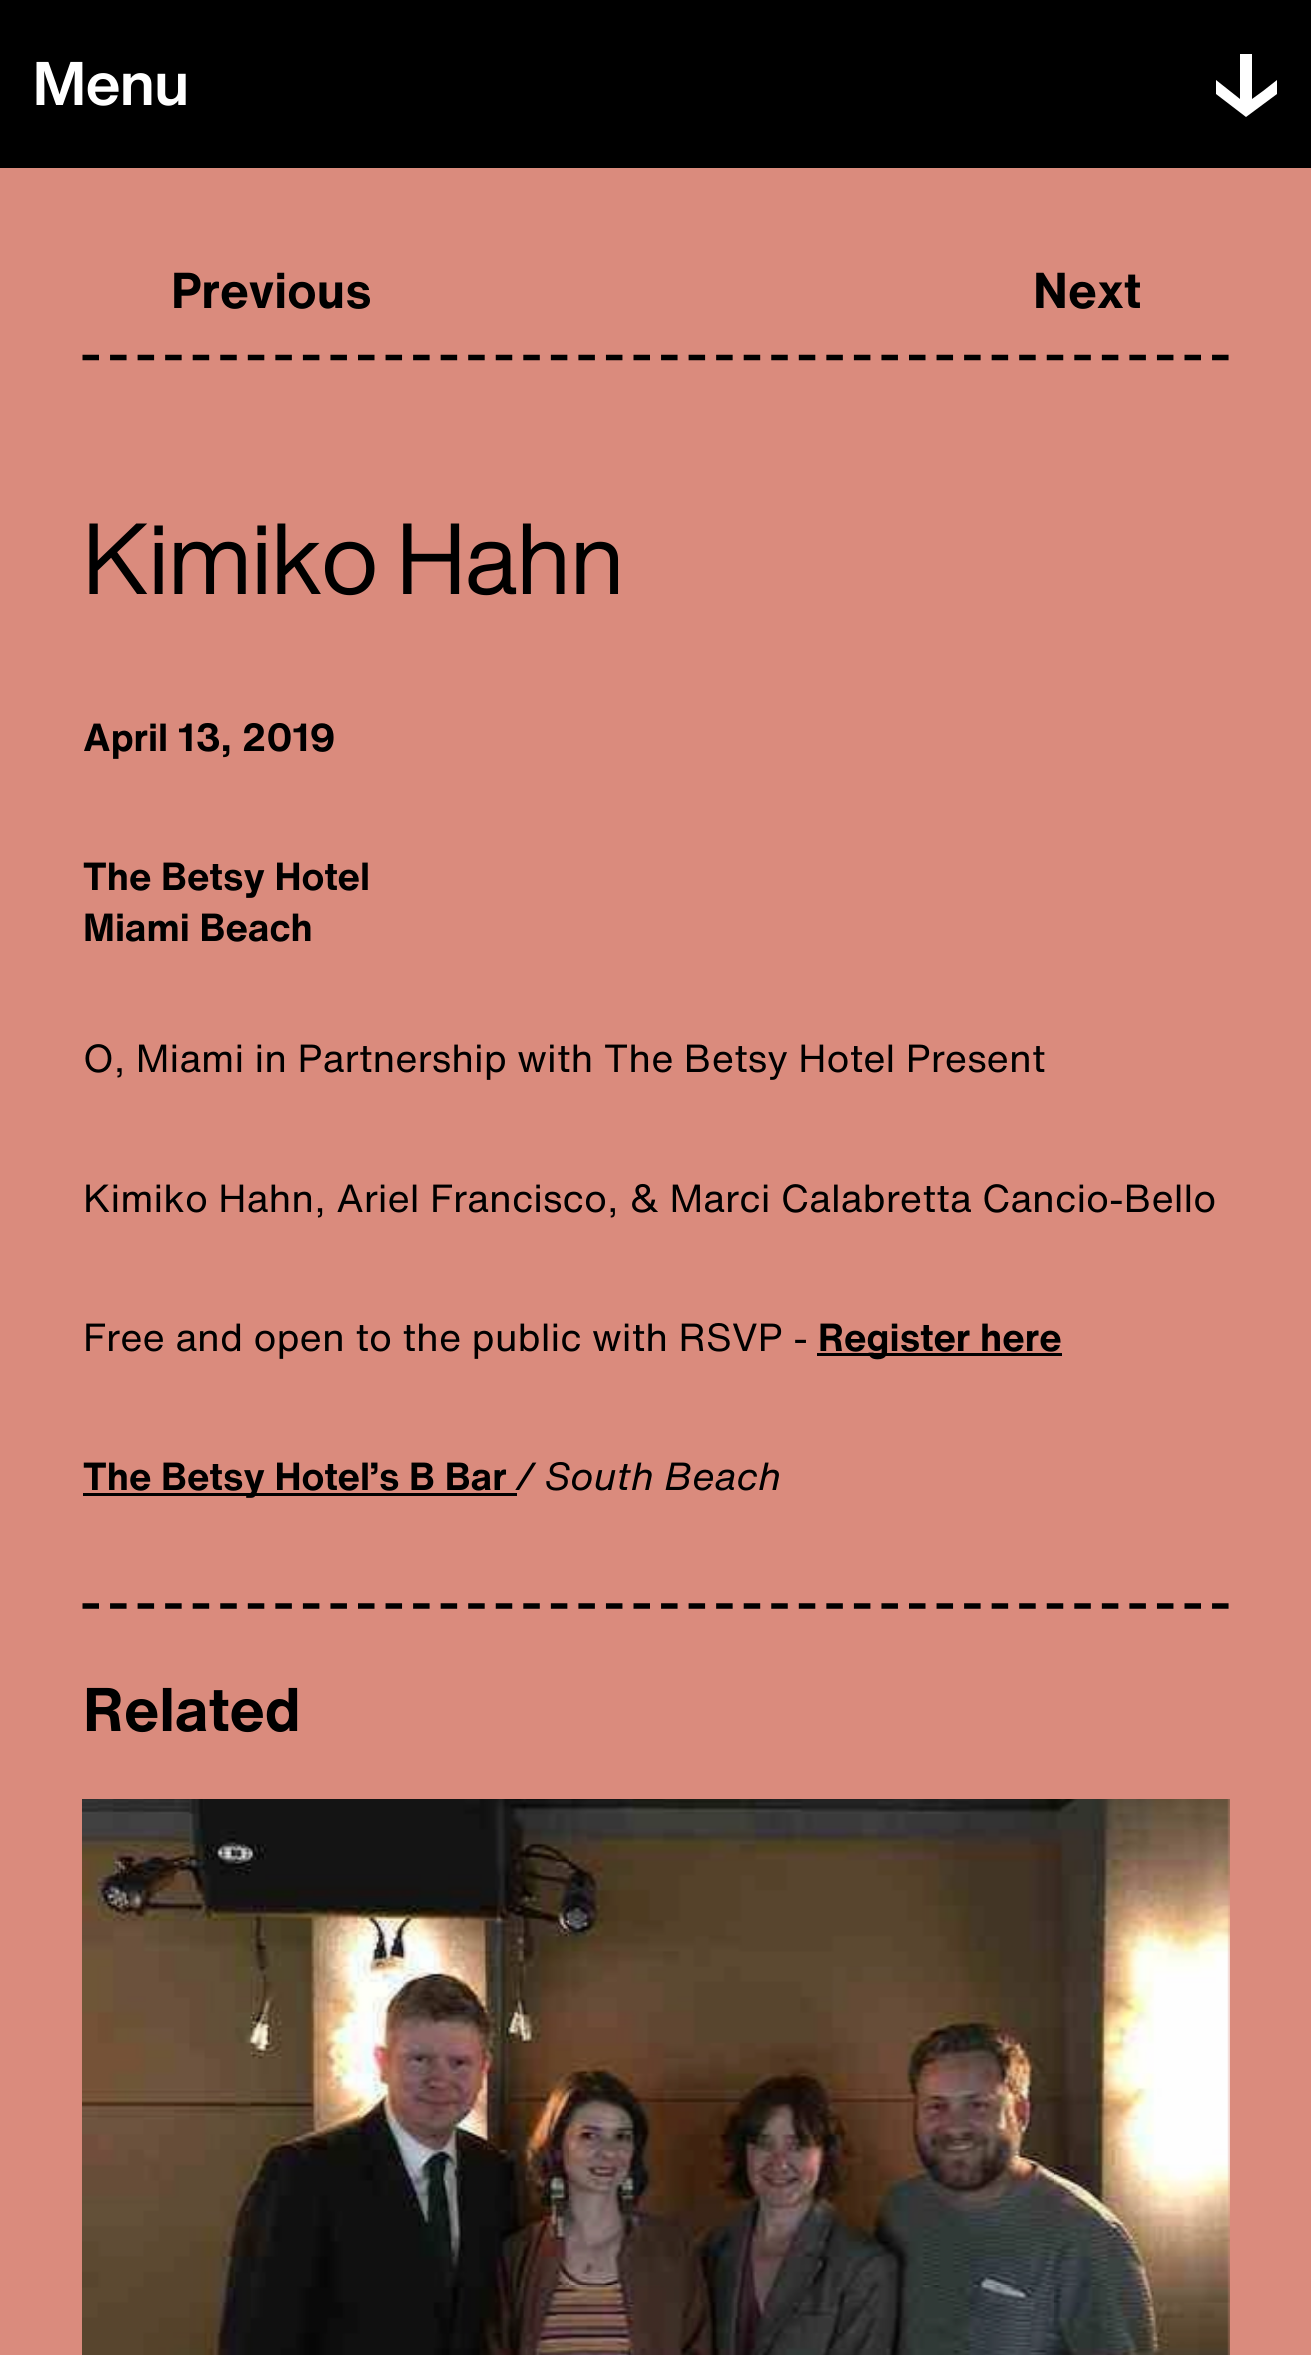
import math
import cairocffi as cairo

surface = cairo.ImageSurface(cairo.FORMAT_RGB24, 1311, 2355)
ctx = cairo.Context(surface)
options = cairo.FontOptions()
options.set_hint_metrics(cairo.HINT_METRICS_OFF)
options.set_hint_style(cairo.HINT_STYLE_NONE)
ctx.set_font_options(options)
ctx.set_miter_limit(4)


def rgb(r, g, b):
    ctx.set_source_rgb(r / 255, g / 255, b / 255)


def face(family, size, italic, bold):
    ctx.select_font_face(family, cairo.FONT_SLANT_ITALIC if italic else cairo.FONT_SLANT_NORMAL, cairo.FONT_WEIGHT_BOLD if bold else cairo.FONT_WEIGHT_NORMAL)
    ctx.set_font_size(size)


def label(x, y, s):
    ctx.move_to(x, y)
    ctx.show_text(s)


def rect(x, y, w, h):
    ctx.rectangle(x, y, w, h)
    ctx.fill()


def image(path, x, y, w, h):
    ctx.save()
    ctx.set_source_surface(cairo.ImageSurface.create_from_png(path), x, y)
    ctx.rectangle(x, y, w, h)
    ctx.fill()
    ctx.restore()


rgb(218, 139, 125)
ctx.paint()
rgb(0, 0, 0)
rect(0, 0, 1311, 168)
face('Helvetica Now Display', 60.5, 0, 1)
rgb(255, 255, 255)
label(33, 105, 'Menu')
ctx.new_path()
ctx.move_to(1263, 91)
ctx.line_to(1252, 99)
ctx.line_to(1252, 54)
ctx.line_to(1240, 54)
ctx.line_to(1240, 99)
ctx.line_to(1216, 80)
ctx.line_to(1216, 94)
ctx.line_to(1246, 117)
ctx.line_to(1277, 94)
ctx.line_to(1277, 80)
ctx.close_path()
ctx.fill()
face('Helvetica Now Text', 49.5, 0, 1)
rgb(0, 0, 0)
label(171, 308, 'Previous')
label(1033, 308, 'Next')
ctx.new_path()
ctx.move_to(82.5, 357.5)
ctx.line_to(1229, 357.5)
ctx.set_line_width(5.5)
ctx.set_dash([16.5, 11.05])
ctx.stroke()
face('Helvetica Now Display', 99, 0, 0)
label(83, 594, 'Kimiko Hahn')
face('Helvetica Now Text', 38.5, 0, 1)
label(83, 751, 'April 13, 2019')
label(83, 890, 'The Betsy Hotel')
label(83, 941, 'Miami Beach')
face('Helvetica Now Text', 38.5, 0, 0)
label(83, 1072, 'O, Miami in Partnership with The Betsy Hotel Present')
label(83, 1212, 'Kimiko Hahn, Ariel Francisco, & Marci Calabretta Cancio-Bello')
label(83, 1351, 'Free and open to the public with RSVP -')
rect(817, 1353, 245, 3)
face('Helvetica Now Text', 38.5, 0, 1)
label(818, 1351, 'Register here')
rect(83, 1493, 434, 3)
label(83, 1490, 'The Betsy Hotel’s B Bar')
face('Helvetica Now Text', 38.5, 1, 0)
label(516, 1490, '/ South Beach')
ctx.new_path()
ctx.move_to(82.5, 1606)
ctx.line_to(1229, 1606)
ctx.stroke()
face('Helvetica Now Text', 60.5, 0, 1)
label(83, 1731, 'Related')
image('image0.png', 82, 1799, 1148, 556)
surface.write_to_png('render.png')
